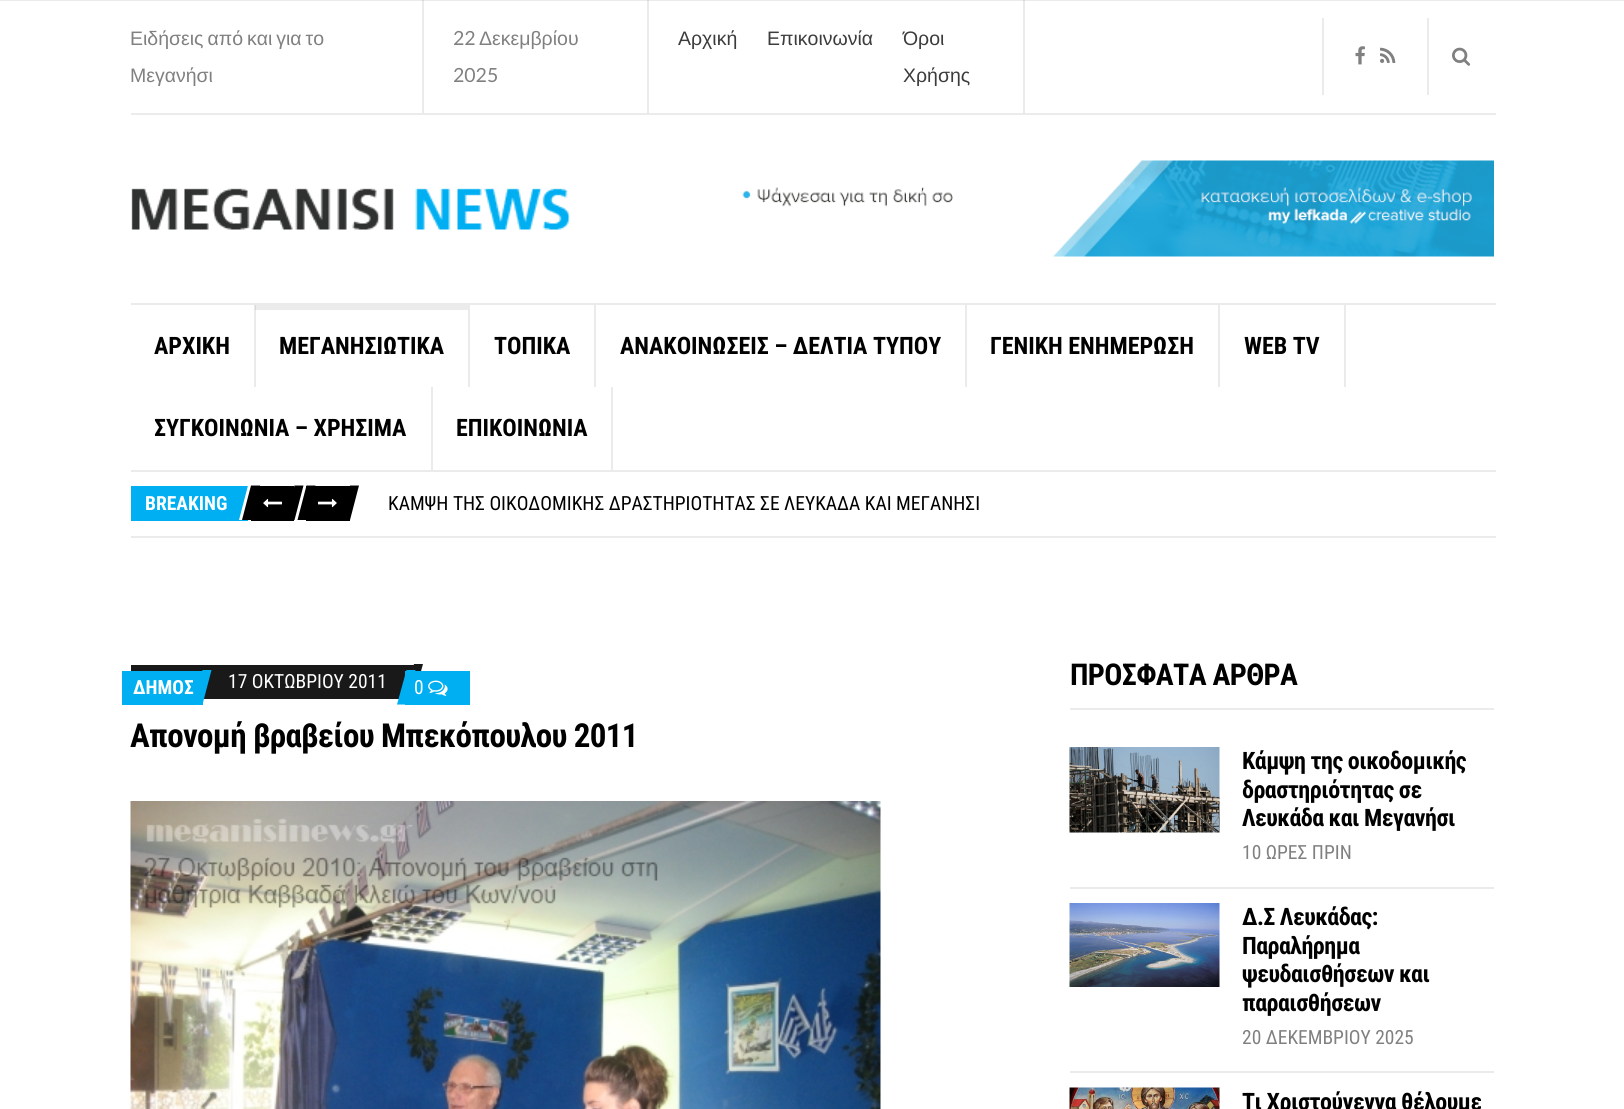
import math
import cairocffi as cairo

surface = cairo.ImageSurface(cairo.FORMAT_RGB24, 1624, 1109)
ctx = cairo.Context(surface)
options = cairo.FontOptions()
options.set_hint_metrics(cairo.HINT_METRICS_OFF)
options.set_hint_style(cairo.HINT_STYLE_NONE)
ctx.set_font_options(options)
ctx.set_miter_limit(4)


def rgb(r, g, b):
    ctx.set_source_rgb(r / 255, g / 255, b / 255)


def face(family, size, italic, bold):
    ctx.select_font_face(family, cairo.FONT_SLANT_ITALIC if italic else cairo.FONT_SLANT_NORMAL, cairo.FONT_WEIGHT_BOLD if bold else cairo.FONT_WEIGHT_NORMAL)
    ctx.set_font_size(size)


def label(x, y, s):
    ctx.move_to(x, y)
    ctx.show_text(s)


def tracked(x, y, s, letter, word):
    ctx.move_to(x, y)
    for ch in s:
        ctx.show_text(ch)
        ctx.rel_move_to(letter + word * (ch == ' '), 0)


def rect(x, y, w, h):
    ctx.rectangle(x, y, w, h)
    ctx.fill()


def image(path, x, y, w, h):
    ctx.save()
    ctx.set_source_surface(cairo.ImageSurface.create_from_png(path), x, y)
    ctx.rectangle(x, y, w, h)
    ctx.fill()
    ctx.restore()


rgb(255, 255, 255)
ctx.paint()
rgb(235, 235, 235)
rect(255, 305, 213, 5)
rect(131, 113, 1365, 2)
rect(1427, 18, 2, 77)
rect(422, 0, 2, 113)
rect(647, 0, 2, 113)
rect(1023, 0, 2, 113)
ctx.set_source_rgba(0, 0, 0, 0.08)
rect(0, 0, 1624, 1)
image('image0.png', 1452, 47, 19, 19)
rgb(235, 235, 235)
rect(1322, 18, 2, 77)
image('image1.png', 1355, 46, 10, 19)
image('image2.png', 1380, 47, 16, 16)
face('Liberation Sans', 19.5, 0, 0)
rgb(128, 128, 128)
tracked(130, 45, 'Ειδήσεις από και για το', 0, -1.5)
label(130, 82, 'Μεγανήσι')
face('Lato', 19.5, 0, 0)
label(453, 45, '22')
face('Liberation Sans', 19.5, 0, 0)
label(479, 45, 'Δεκεμβρίου')
face('Lato', 19.5, 0, 0)
label(453, 82, '2025')
face('Liberation Sans', 19.5, 0, 0)
rgb(60, 60, 60)
label(678, 45, 'Αρχική')
label(767, 45, 'Επικοινωνία')
label(903, 45, 'Όροι')
label(903, 82, 'Χρήσης')
image('image3.png', 131, 188, 439, 42)
image('image4.png', 742, 160, 752, 97)
rgb(235, 235, 235)
rect(131, 303, 1365, 2)
rect(131, 470, 1365, 2)
rect(254, 305, 2, 82)
rgb(216, 216, 216)
rect(255, 305, 1, 5)
face('Roboto Condensed', 24, 0, 1)
rgb(0, 0, 0)
label(154, 354, 'ΑΡΧΙΚΗ')
rgb(235, 235, 235)
rect(468, 305, 2, 82)
rgb(0, 0, 0)
label(279, 354, 'ΜΕΓΑΝΗΣΙΩΤΙΚΑ')
rgb(235, 235, 235)
rect(594, 305, 2, 82)
rgb(0, 0, 0)
label(494, 354, 'ΤΟΠΙΚΑ')
rgb(235, 235, 235)
rect(965, 305, 2, 82)
rgb(0, 0, 0)
label(620, 354, 'ΑΝΑΚΟΙΝΩΣΕΙΣ – ΔΕΛΤΙΑ ΤΥΠΟΥ')
rgb(235, 235, 235)
rect(1218, 305, 2, 82)
rgb(0, 0, 0)
label(990, 354, 'ΓΕΝΙΚΗ ΕΝΗΜΕΡΩΣΗ')
rgb(235, 235, 235)
rect(1344, 305, 2, 82)
rgb(0, 0, 0)
label(1244, 354, 'WEB TV')
rgb(235, 235, 235)
rect(431, 387, 2, 83)
rgb(0, 0, 0)
label(154, 436, 'ΣΥΓΚΟΙΝΩΝΙΑ – ΧΡΗΣΙΜΑ')
rgb(235, 235, 235)
rect(611, 387, 2, 83)
rgb(0, 0, 0)
label(456, 436, 'ΕΠΙΚΟΙΝΩΝΙΑ')
rgb(235, 235, 235)
rect(131, 536, 1365, 2)
rgb(0, 175, 242)
rect(131, 486, 117, 35)
face('Roboto Condensed', 19.5, 0, 1)
rgb(255, 255, 255)
label(145, 510, 'BREAKING')
ctx.new_path()
ctx.move_to(248, 485.5)
ctx.line_to(257, 485.5)
ctx.line_to(248, 520)
ctx.line_to(239, 520)
ctx.close_path()
ctx.fill()
rgb(0, 0, 0)
rect(251, 486, 43, 35)
image('image5.png', 263, 498, 19, 10)
ctx.new_path()
ctx.move_to(251, 485.5)
ctx.line_to(260, 485.5)
ctx.line_to(251, 520)
ctx.line_to(242, 520)
ctx.close_path()
ctx.move_to(294.5, 485.5)
ctx.line_to(303.5, 485.5)
ctx.line_to(294.5, 520)
ctx.line_to(285.5, 520)
ctx.close_path()
ctx.fill()
rect(306, 486, 44, 35)
image('image6.png', 318, 498, 19, 10)
ctx.new_path()
ctx.move_to(306.5, 485.5)
ctx.line_to(315.5, 485.5)
ctx.line_to(306.5, 520)
ctx.line_to(297.5, 520)
ctx.close_path()
ctx.move_to(350, 485.5)
ctx.line_to(359, 485.5)
ctx.line_to(350, 520)
ctx.line_to(341, 520)
ctx.close_path()
ctx.fill()
face('Roboto Condensed', 19.5, 0, 0)
label(388, 510, 'ΚΑΜΨΗ ΤΗΣ ΟΙΚΟΔΟΜΙΚΗΣ ΔΡΑΣΤΗΡΙΟΤΗΤΑΣ ΣΕ ΛΕΥΚΑΔΑ ΚΑΙ ΜΕΓΑΝΗΣΙ')
rgb(25, 25, 25)
rect(131, 665, 283, 34)
rgb(0, 175, 242)
rect(122, 671, 81, 34)
face('Roboto Condensed', 19.5, 0, 1)
rgb(255, 255, 255)
label(133, 694, 'ΔΗΜΟΣ')
rgb(0, 175, 242)
ctx.new_path()
ctx.move_to(202.5, 670)
ctx.line_to(211.5, 670)
ctx.line_to(202.5, 704.5)
ctx.line_to(193.5, 704.5)
ctx.close_path()
ctx.fill()
face('Roboto Condensed', 19.5, 0, 0)
rgb(255, 255, 255)
label(228, 688, '17 ΟΚΤΩΒΡΙΟΥ 2011')
rgb(25, 25, 25)
ctx.new_path()
ctx.move_to(414, 664)
ctx.line_to(423, 664)
ctx.line_to(413.5, 698.5)
ctx.line_to(404.5, 698.5)
ctx.close_path()
ctx.fill()
rgb(0, 175, 242)
rect(405, 671, 65, 34)
rgb(255, 255, 255)
label(414, 694, '0')
rgb(0, 175, 242)
ctx.new_path()
ctx.move_to(406.5, 670)
ctx.line_to(415.5, 670)
ctx.line_to(406, 704.5)
ctx.line_to(397, 704.5)
ctx.close_path()
ctx.fill()
image('image7.png', 428, 680, 20, 16)
face('Roboto Condensed', 33, 0, 1)
rgb(0, 0, 0)
tracked(130, 747, 'Απονομή βραβείου Μπεκόπουλου 2011', -0.65, 0)
image('image8.png', 130, 801, 751, 308)
rgb(235, 235, 235)
rect(1070, 708, 424, 2)
face('Roboto Condensed', 30, 0, 1)
rgb(0, 0, 0)
tracked(1070, 685, 'ΠΡΟΣΦΑΤΑ ΑΡΘΡΑ', -0.6, 0)
rgb(235, 235, 235)
rect(1070, 887, 424, 2)
image('image9.png', 1069, 747, 151, 86)
face('Roboto Condensed', 24, 0, 1)
rgb(0, 0, 0)
tracked(1242, 769, 'Κάμψη της οικοδομικής', -0.5, 0)
tracked(1242, 798, 'δραστηριότητας σε', -0.5, 0)
tracked(1242, 826, 'Λευκάδα και Μεγανήσι', -0.5, 0)
face('Roboto Condensed', 19.5, 0, 0)
rgb(128, 128, 128)
label(1242, 859, '10 ΩΡΕΣ ΠΡΙΝ')
rgb(235, 235, 235)
rect(1070, 1071, 424, 2)
image('image10.png', 1069, 903, 151, 84)
face('Roboto Condensed', 24, 0, 1)
rgb(0, 0, 0)
tracked(1242, 925, 'Δ.Σ Λευκάδας:', -0.5, 0)
tracked(1242, 954, 'Παραλήρημα', -0.5, 0)
tracked(1242, 982, 'ψευδαισθήσεων και', -0.5, 0)
tracked(1242, 1011, 'παραισθήσεων', -0.5, 0)
face('Roboto Condensed', 19.5, 0, 0)
rgb(128, 128, 128)
label(1242, 1044, '20 ΔΕΚΕΜΒΡΙΟΥ 2025')
image('image11.png', 1069, 1087, 151, 22)
face('Roboto Condensed', 24, 0, 1)
rgb(0, 0, 0)
tracked(1242, 1110, 'Τι Χριστούγεννα θέλουμε', -0.5, 0)
surface.write_to_png('render.png')
